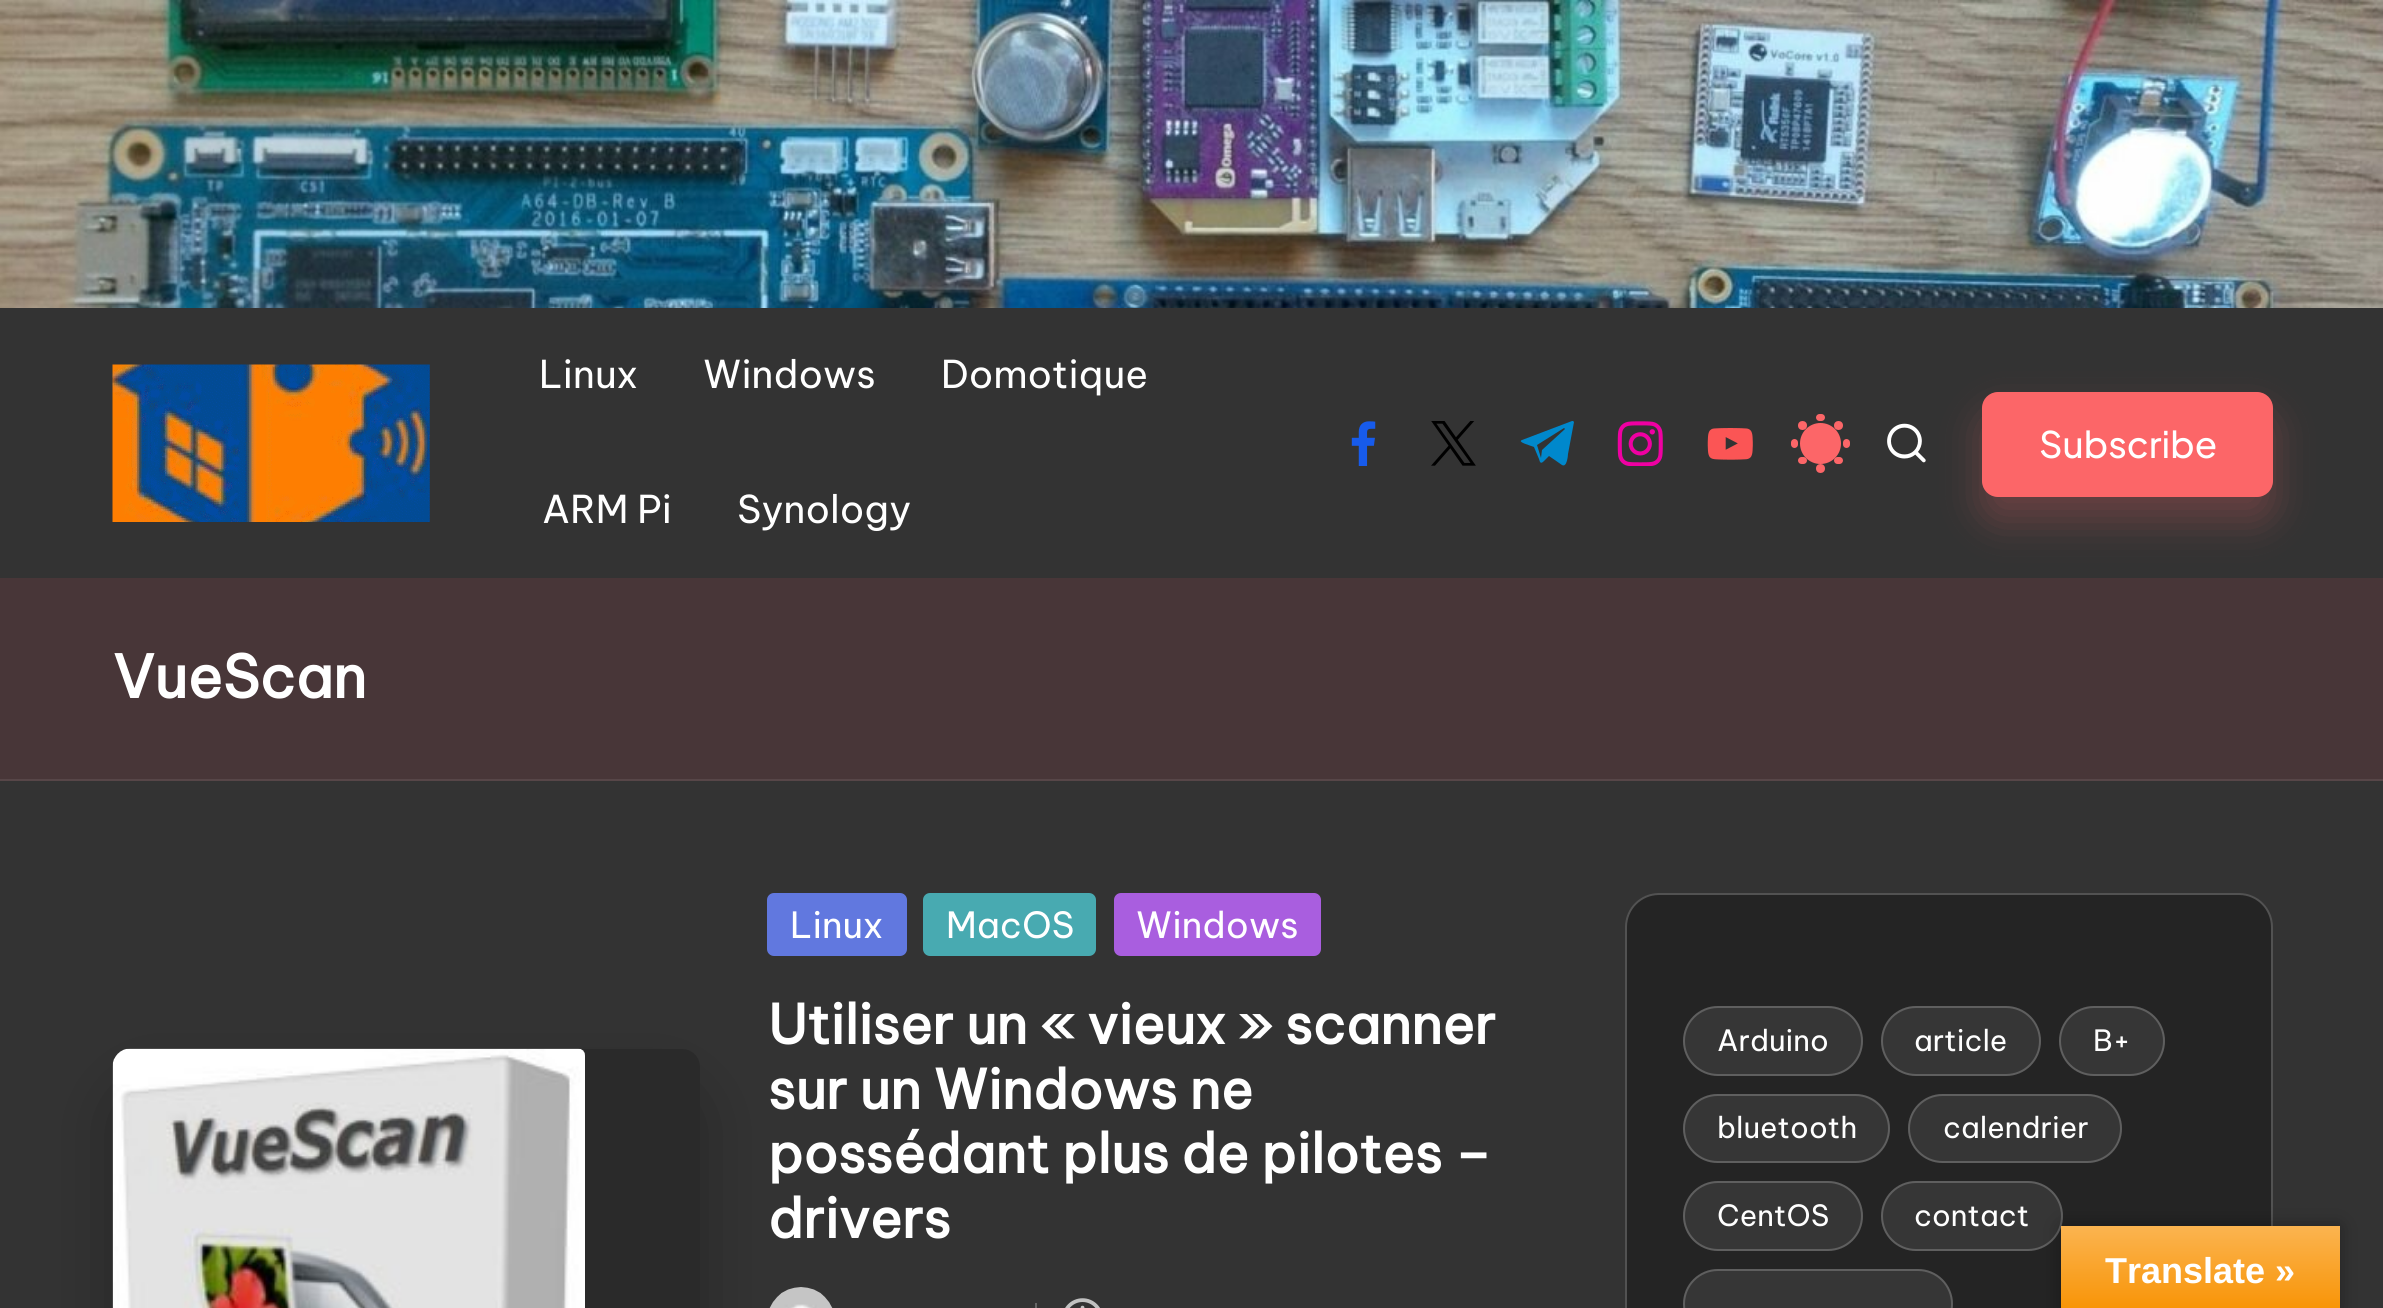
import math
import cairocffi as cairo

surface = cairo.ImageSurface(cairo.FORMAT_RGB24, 2383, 1308)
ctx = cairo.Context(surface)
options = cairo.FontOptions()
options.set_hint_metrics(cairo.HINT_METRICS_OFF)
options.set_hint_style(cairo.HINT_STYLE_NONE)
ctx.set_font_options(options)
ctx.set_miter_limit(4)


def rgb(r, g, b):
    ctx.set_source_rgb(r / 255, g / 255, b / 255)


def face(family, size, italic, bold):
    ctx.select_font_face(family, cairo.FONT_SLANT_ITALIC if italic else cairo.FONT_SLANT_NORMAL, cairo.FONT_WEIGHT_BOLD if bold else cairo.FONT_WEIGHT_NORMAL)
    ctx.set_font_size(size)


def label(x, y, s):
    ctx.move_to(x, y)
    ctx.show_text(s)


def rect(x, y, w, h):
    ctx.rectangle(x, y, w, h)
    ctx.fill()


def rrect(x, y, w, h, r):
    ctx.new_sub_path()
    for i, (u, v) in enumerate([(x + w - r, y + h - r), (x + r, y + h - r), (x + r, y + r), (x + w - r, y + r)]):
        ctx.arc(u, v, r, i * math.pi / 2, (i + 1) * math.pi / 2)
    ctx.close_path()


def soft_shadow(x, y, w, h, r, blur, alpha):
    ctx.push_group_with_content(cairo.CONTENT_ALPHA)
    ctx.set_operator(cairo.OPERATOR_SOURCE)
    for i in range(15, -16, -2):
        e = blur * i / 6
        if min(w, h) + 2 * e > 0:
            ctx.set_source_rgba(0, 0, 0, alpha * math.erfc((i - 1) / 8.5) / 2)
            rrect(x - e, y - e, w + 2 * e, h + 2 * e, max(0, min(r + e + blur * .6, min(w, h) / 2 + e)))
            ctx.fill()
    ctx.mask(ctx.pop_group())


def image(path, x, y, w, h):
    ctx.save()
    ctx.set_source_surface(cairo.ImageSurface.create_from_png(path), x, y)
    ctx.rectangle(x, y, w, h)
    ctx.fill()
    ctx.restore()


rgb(51, 51, 51)
ctx.paint()
image('image0.png', 0, 0, 2383, 308)
image('image1.png', 112, 364, 318, 158)
face('Be Vietnam Pro', 38.25, 0, 0)
rgb(255, 255, 255)
label(539, 388, 'Linux')
label(703, 388, 'Windows')
label(941, 388, 'Domotique')
label(542, 523, 'ARM Pi')
label(737, 523, 'Synology')
image('image2.png', 1351, 421, 25, 45)
image('image3.png', 1431, 421, 45, 45)
rgb(0, 136, 204)
ctx.set_fill_rule(cairo.FILL_RULE_EVEN_ODD)
ctx.new_path()
ctx.move_to(1562, 465)
ctx.curve_to(1567, 468, 1568, 455, 1568, 454)
ctx.line_to(1574, 422)
ctx.line_to(1573, 421)
ctx.line_to(1572, 421)
ctx.line_to(1522, 440)
ctx.curve_to(1517, 442, 1529, 445, 1534, 447)
ctx.line_to(1539, 459)
ctx.curve_to(1540, 463, 1541, 464, 1544, 461)
ctx.line_to(1549, 456)
ctx.close_path()
ctx.move_to(1537, 445)
ctx.line_to(1541, 458)
ctx.line_to(1542, 450)
ctx.line_to(1565, 429)
ctx.line_to(1564, 428)
ctx.close_path()
ctx.fill()
image('image4.png', 1617, 421, 46, 45)
image('image5.png', 1707, 428, 46, 32)
rgb(252, 102, 104)
ctx.arc(1838.5, 425.5, 4.5, 0, 2 * math.pi)
ctx.fill()
rrect(1798, 457, 9, 7, 3.5)
ctx.fill()
rrect(1834, 457, 9, 7, 3.5)
ctx.fill()
ctx.arc(1802.5, 425.5, 4.5, 0, 2 * math.pi)
ctx.fill()
ctx.arc(1820.5, 468.5, 4.5, 0, 2 * math.pi)
ctx.fill()
rrect(1816, 414, 9, 7, 3.5)
ctx.fill()
rrect(1843, 439, 7, 9, 3.5)
ctx.fill()
rrect(1791, 439, 7, 9, 3.5)
ctx.fill()
ctx.arc(1820.5, 443.5, 20.5, 0, 2 * math.pi)
ctx.fill()
image('image6.png', 1887, 423, 39, 40)
rgb(72, 54, 56)
rect(0, 578, 2383, 201)
rgb(252, 102, 104)
soft_shadow(1982, 414, 291, 106, 16, 20, 0.27)
rgb(252, 102, 104)
rrect(1983, 393, 289, 103, 15)
ctx.fill_preserve()
ctx.stroke()
face('Plus Jakarta Sans Medium', 36.5, 0, 0)
rgb(255, 255, 255)
label(2039, 458, 'Subscribe')
rgb(87, 70, 72)
rect(0, 779, 2383, 2)
face('Be Vietnam Pro', 58.5, 0, 1)
rgb(255, 255, 255)
label(113, 698, 'VueScan')
image('image8.png', 769, 1287, 64, 21)
rgb(0, 0, 0)
soft_shadow(140, 1112, 533, 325, 0, 43, 0.5)
rgb(42, 42, 42)
rrect(113, 1049, 587, 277, 18)
ctx.fill()
image('image7.png', 112, 1048, 473, 260)
rgb(97, 120, 223)
rrect(767, 893, 140, 63, 7)
ctx.fill()
face('Be Vietnam Pro', 36, 0, 0)
rgb(255, 255, 255)
label(790, 938, 'Linux')
rgb(72, 170, 177)
rrect(923, 893, 173, 63, 7)
ctx.fill()
rgb(255, 255, 255)
label(946, 938, 'MacOS')
rgb(169, 94, 223)
rrect(1114, 893, 207, 63, 7)
ctx.fill()
rgb(255, 255, 255)
label(1136, 938, 'Windows')
face('Be Vietnam Pro', 54, 0, 1)
label(768, 1044, 'Utiliser un « vieux » scanner')
label(768, 1109, 'sur un Windows ne')
label(768, 1173, 'possédant plus de pilotes –')
label(768, 1238, 'drivers')
rgb(102, 102, 102)
rect(1035, 1303, 2, 5)
image('image9.png', 1065, 1298, 35, 10)
rgb(36, 36, 36)
rrect(1625, 893, 648, 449, 34)
ctx.fill()
rrect(1626, 894, 646, 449, 33)
ctx.set_source_rgba(0.745, 0.745, 0.745, 0.3)
ctx.stroke()
rgb(54, 54, 54)
rrect(1683, 1006, 180, 70, 35)
ctx.fill()
rrect(1684, 1007, 178, 68, 34)
ctx.set_source_rgba(0.745, 0.745, 0.745, 0.3)
ctx.stroke()
face('Be Vietnam Pro', 29.25, 0, 0)
rgb(255, 255, 255)
label(1717, 1051, 'Arduino')
rgb(54, 54, 54)
rrect(1881, 1006, 160, 70, 35)
ctx.fill()
rrect(1882, 1007, 158, 68, 34)
ctx.set_source_rgba(0.745, 0.745, 0.745, 0.3)
ctx.stroke()
rgb(255, 255, 255)
label(1914, 1051, 'article')
rgb(54, 54, 54)
rrect(2059, 1006, 106, 70, 35)
ctx.fill()
rrect(2060, 1007, 104, 68, 34)
ctx.set_source_rgba(0.745, 0.745, 0.745, 0.3)
ctx.stroke()
rgb(255, 255, 255)
label(2093, 1051, 'B+')
rgb(54, 54, 54)
rrect(1683, 1094, 207, 69, 34.5)
ctx.fill()
rrect(1684, 1095, 205, 67, 33.5)
ctx.set_source_rgba(0.745, 0.745, 0.745, 0.3)
ctx.stroke()
rgb(255, 255, 255)
label(1717, 1138, 'bluetooth')
rgb(54, 54, 54)
rrect(1908, 1094, 214, 69, 34.5)
ctx.fill()
rrect(1909, 1095, 212, 67, 33.5)
ctx.set_source_rgba(0.745, 0.745, 0.745, 0.3)
ctx.stroke()
rgb(255, 255, 255)
label(1943, 1138, 'calendrier')
rgb(54, 54, 54)
rrect(1683, 1181, 180, 70, 35)
ctx.fill()
rrect(1684, 1182, 178, 68, 34)
ctx.set_source_rgba(0.745, 0.745, 0.745, 0.3)
ctx.stroke()
rgb(255, 255, 255)
label(1717, 1226, 'CentOS')
rgb(54, 54, 54)
rrect(1881, 1181, 182, 70, 35)
ctx.fill()
rrect(1882, 1182, 180, 68, 34)
ctx.set_source_rgba(0.745, 0.745, 0.745, 0.3)
ctx.stroke()
rgb(255, 255, 255)
label(1914, 1226, 'contact')
rgb(54, 54, 54)
rrect(1683, 1269, 270, 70, 35)
ctx.fill()
rrect(1684, 1270, 268, 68, 34)
ctx.set_source_rgba(0.745, 0.745, 0.745, 0.3)
ctx.stroke()
rgb(0, 0, 0)
soft_shadow(2061, 1226, 279, 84, 0, 10, 0.3)
gradient = cairo.LinearGradient(2201, 1226, 2201, 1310)
gradient.add_color_stop_rgba(0, 0.984, 0.706, 0.314, 1)
gradient.add_color_stop_rgba(1, 0.973, 0.58, 0.024, 1)
ctx.set_source(gradient)
rect(2061, 1226, 279, 82)
face('Liberation Sans', 36, 0, 1)
rgb(255, 255, 255)
label(2105, 1283, 'Translate »')
surface.write_to_png('render.png')
